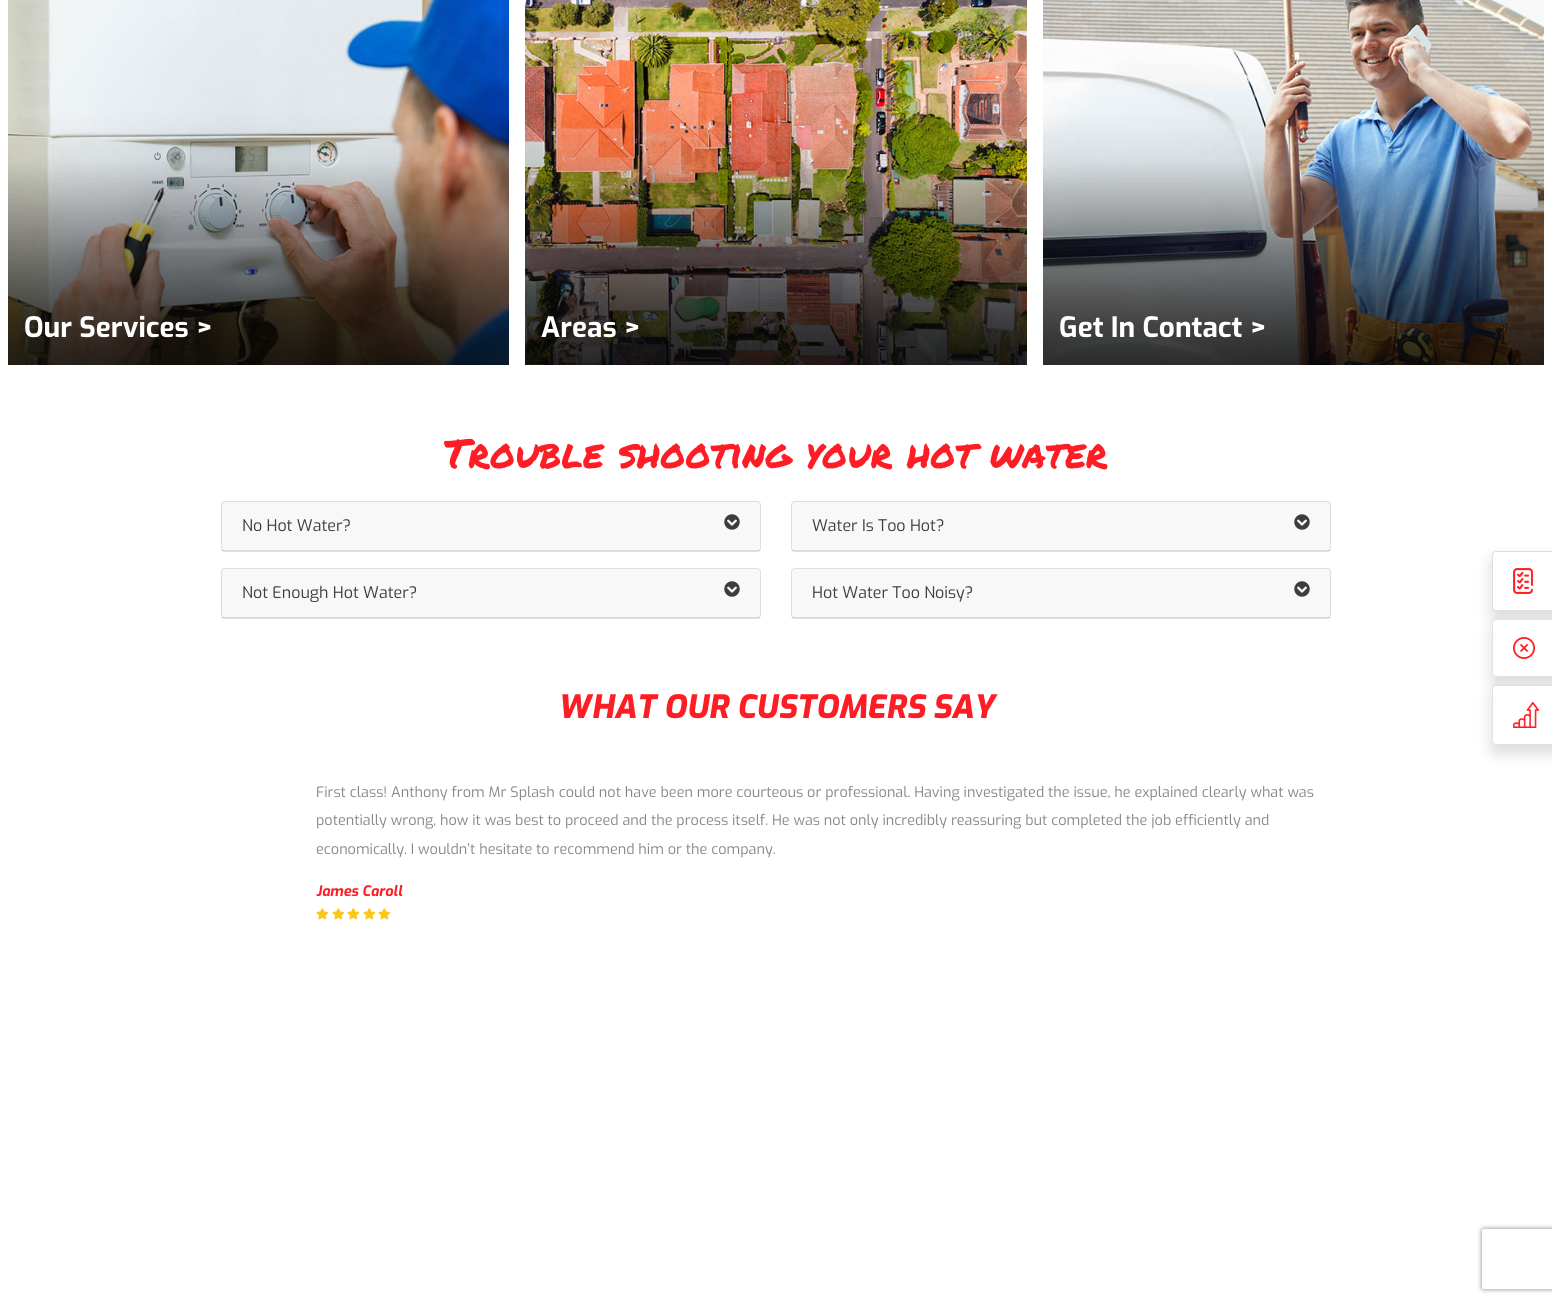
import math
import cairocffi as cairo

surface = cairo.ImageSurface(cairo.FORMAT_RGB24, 1552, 1303)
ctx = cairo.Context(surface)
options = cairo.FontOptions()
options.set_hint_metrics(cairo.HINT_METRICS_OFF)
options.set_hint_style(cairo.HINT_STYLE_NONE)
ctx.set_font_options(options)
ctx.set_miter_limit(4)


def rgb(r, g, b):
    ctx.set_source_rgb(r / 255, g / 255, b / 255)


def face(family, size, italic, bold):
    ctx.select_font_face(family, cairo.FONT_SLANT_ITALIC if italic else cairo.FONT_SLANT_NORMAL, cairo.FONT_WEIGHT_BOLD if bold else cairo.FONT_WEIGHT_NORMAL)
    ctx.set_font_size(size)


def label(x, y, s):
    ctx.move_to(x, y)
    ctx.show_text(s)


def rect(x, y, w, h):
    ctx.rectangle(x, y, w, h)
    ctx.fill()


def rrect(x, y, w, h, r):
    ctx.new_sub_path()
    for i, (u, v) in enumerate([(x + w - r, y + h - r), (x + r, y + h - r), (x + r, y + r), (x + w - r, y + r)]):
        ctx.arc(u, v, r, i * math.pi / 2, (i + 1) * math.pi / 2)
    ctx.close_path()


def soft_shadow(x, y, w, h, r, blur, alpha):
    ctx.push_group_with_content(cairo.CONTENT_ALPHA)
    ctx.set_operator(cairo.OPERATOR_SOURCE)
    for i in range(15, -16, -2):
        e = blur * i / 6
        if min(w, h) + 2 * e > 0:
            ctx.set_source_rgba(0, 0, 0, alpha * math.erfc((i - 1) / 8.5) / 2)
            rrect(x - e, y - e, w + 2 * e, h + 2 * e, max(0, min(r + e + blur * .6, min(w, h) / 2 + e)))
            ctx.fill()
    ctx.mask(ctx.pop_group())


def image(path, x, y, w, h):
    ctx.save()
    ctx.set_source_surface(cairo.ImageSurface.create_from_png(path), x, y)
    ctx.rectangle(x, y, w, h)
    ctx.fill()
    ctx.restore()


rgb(255, 255, 255)
ctx.paint()
image('image0.png', 8, 0, 501, 365)
face('Exo', 28, 0, 1)
rgb(255, 255, 255)
label(24, 337, 'Our Services >')
image('image1.png', 525, 0, 502, 365)
label(541, 337, 'Areas >')
image('image2.png', 1043, 0, 501, 365)
label(1059, 337, 'Get In Contact >')
face('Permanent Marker', 40, 0, 0)
rgb(255, 29, 37)
label(444, 468, 'Trouble shooting your hot water')
rrect(221.5, 501.5, 539, 50, 3.5)
rgb(223, 223, 223)
ctx.set_line_width(1)
ctx.stroke()
ctx.set_source_rgba(0, 0, 0, 0.03)
rect(222, 502, 538, 49)
ctx.set_source_rgba(0, 0, 0, 0.12)
rect(222, 550, 538, 1)
face('Exo', 16, 0, 0)
rgb(61, 61, 61)
label(242, 531, 'No Hot Water?')
image('image3.png', 724, 514, 16, 16)
rrect(791.5, 501.5, 539, 50, 3.5)
rgb(223, 223, 223)
ctx.stroke()
ctx.set_source_rgba(0, 0, 0, 0.03)
rect(792, 502, 538, 49)
ctx.set_source_rgba(0, 0, 0, 0.12)
rect(792, 550, 538, 1)
rgb(61, 61, 61)
label(812, 531, 'Water Is Too Hot?')
image('image3.png', 1294, 514, 16, 16)
rrect(221.5, 568.5, 539, 50, 3.5)
rgb(223, 223, 223)
ctx.stroke()
ctx.set_source_rgba(0, 0, 0, 0.03)
rect(222, 569, 538, 49)
ctx.set_source_rgba(0, 0, 0, 0.12)
rect(222, 617, 538, 1)
rgb(61, 61, 61)
label(242, 598, 'Not Enough Hot Water?')
image('image3.png', 724, 581, 16, 16)
rrect(791.5, 568.5, 539, 50, 3.5)
rgb(223, 223, 223)
ctx.stroke()
ctx.set_source_rgba(0, 0, 0, 0.03)
rect(792, 569, 538, 49)
ctx.set_source_rgba(0, 0, 0, 0.12)
rect(792, 617, 538, 1)
rgb(61, 61, 61)
label(812, 598, 'Hot Water Too Noisy?')
image('image3.png', 1294, 581, 16, 16)
rgb(0, 0, 0)
soft_shadow(1492, 559, 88, 60, 4, 8, 0.15)
rgb(255, 255, 255)
rrect(1492.5, 551.5, 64, 59, 3.5)
ctx.fill_preserve()
rgb(223, 223, 223)
ctx.stroke()
image('image4.png', 1513, 568, 21, 26)
rgb(0, 0, 0)
soft_shadow(1492, 627, 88, 58, 4, 8, 0.15)
rgb(255, 255, 255)
rrect(1492, 619, 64, 58, 4)
ctx.fill()
rrect(1492.5, 619.5, 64, 57, 3.5)
ctx.set_source_rgba(0, 0, 0, 0.12)
ctx.stroke()
image('image5.png', 1513, 637, 23, 22)
rgb(0, 0, 0)
soft_shadow(1492, 693, 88, 60, 4, 8, 0.15)
rgb(255, 255, 255)
rrect(1492, 685, 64, 60, 4)
ctx.fill()
rrect(1492.5, 685.5, 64, 59, 3.5)
ctx.set_source_rgba(0, 0, 0, 0.12)
ctx.stroke()
image('image6.png', 1513, 702, 27, 26)
face('Exo ExtraBold', 32, 1, 0)
rgb(255, 29, 37)
label(558, 718, 'WHAT OUR CUSTOMERS SAY')
face('Exo', 14.4, 0, 0)
rgb(135, 135, 135)
label(316, 797, 'First class! Anthony from Mr Splash could not have been more courteous or professional. Having investigated the issue, he explained clearly what was')
label(316, 825, 'potentially wrong, how it was best to proceed and the process itself. He was not only incredibly reassuring but completed the job efficiently and')
label(316, 854, 'economically. I wouldn’t hesitate to recommend him or the company.')
face('Exo', 14.4, 1, 1)
rgb(255, 29, 37)
label(316, 896, 'James Caroll')
image('image7.png', 316, 908, 13, 12)
image('image7.png', 332, 908, 13, 12)
image('image7.png', 347, 908, 13, 12)
image('image7.png', 363, 908, 13, 12)
image('image7.png', 378, 908, 13, 12)
ctx.save()
ctx.set_fill_rule(cairo.FILL_RULE_EVEN_ODD)
ctx.new_path()
ctx.move_to(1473, 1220)
ctx.line_to(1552, 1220)
ctx.line_to(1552, 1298)
ctx.line_to(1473, 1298)
ctx.close_path()
ctx.move_to(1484, 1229)
ctx.line_to(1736, 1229)
ctx.curve_to(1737, 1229, 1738, 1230, 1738, 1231)
ctx.line_to(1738, 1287)
ctx.curve_to(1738, 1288, 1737, 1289, 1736, 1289)
ctx.line_to(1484, 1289)
ctx.curve_to(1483, 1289, 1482, 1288, 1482, 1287)
ctx.line_to(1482, 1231)
ctx.curve_to(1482, 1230, 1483, 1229, 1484, 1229)
ctx.close_path()
ctx.clip()
rgb(128, 128, 128)
soft_shadow(1482, 1229, 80, 60, 2, 2.5, 1)
ctx.restore()
surface.write_to_png('render.png')
